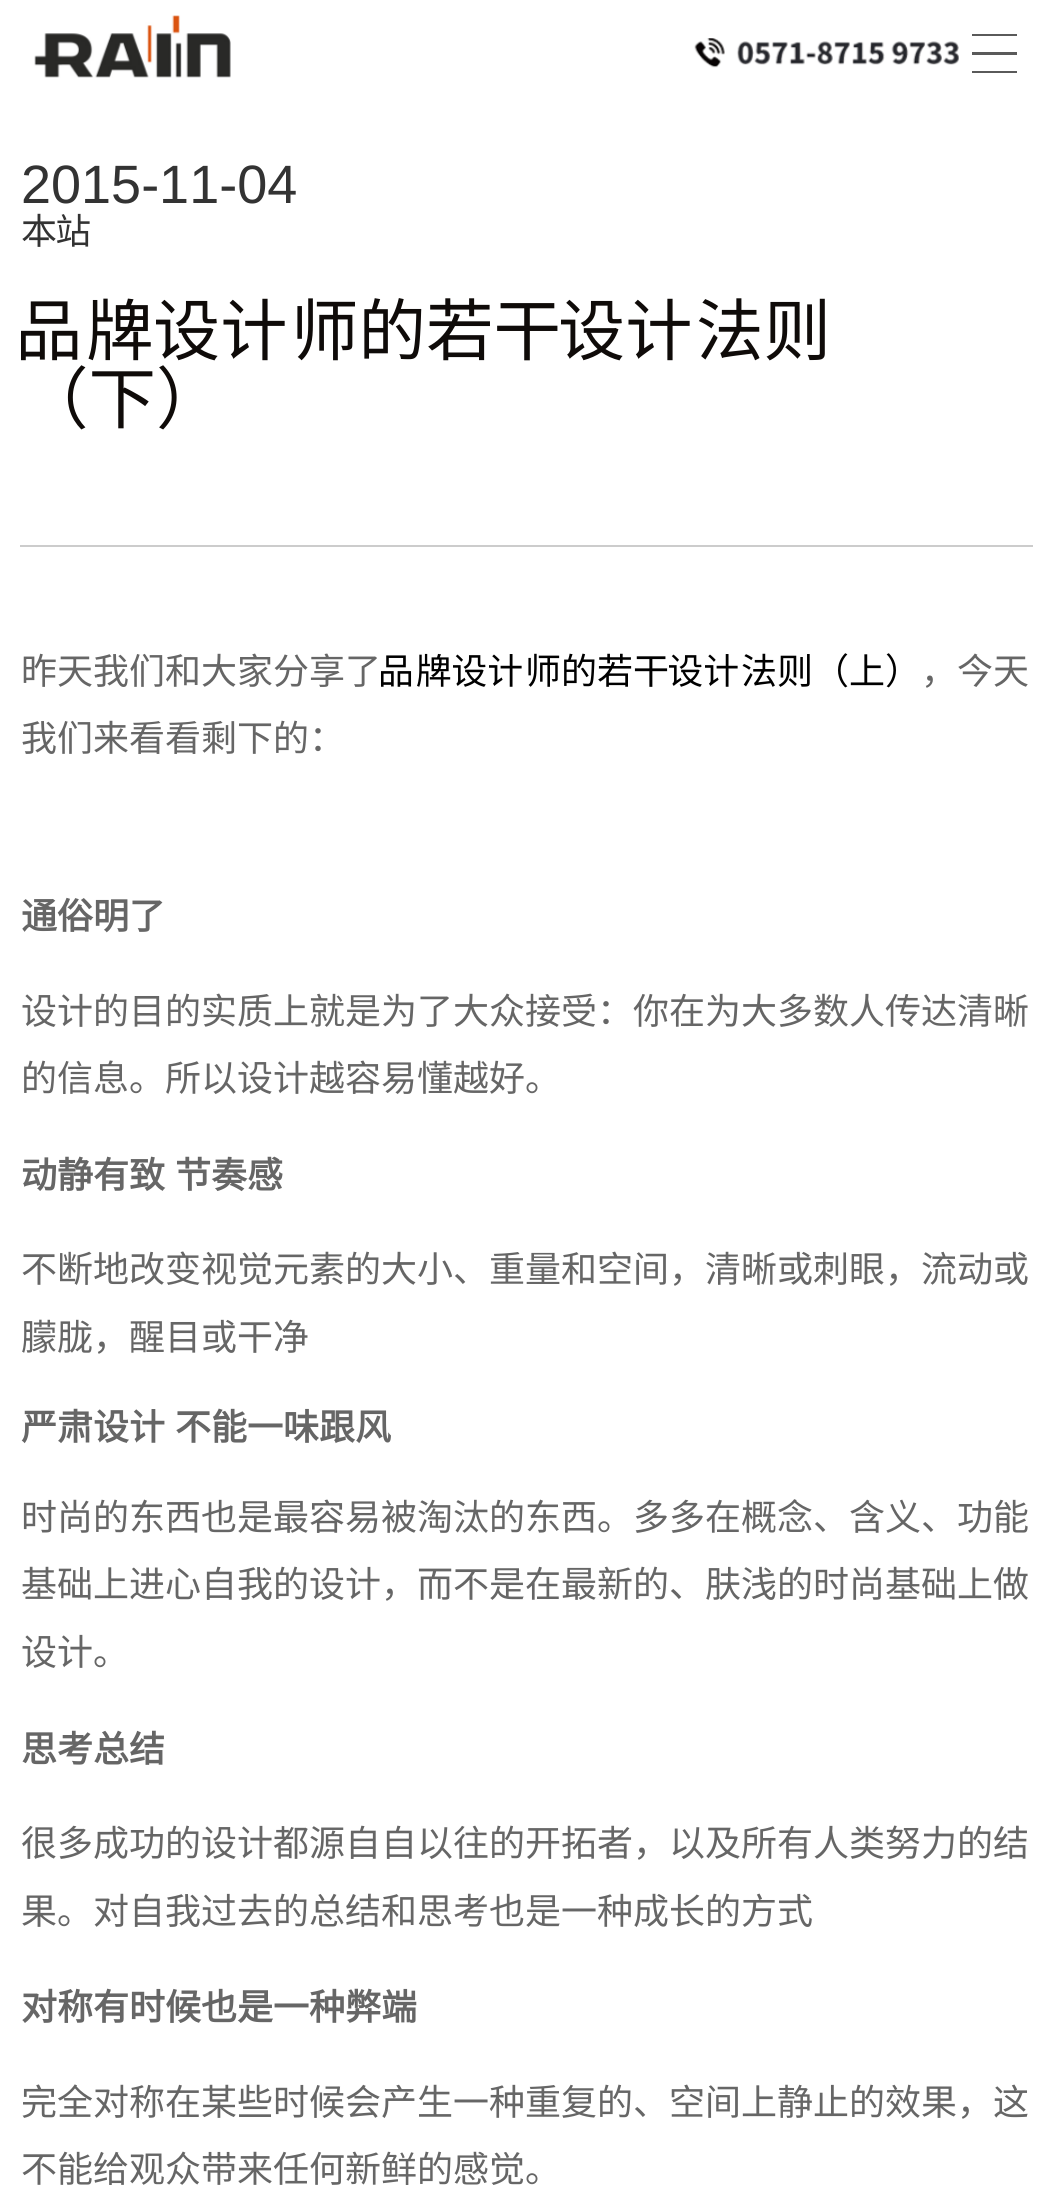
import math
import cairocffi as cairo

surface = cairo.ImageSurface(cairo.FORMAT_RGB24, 1053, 2204)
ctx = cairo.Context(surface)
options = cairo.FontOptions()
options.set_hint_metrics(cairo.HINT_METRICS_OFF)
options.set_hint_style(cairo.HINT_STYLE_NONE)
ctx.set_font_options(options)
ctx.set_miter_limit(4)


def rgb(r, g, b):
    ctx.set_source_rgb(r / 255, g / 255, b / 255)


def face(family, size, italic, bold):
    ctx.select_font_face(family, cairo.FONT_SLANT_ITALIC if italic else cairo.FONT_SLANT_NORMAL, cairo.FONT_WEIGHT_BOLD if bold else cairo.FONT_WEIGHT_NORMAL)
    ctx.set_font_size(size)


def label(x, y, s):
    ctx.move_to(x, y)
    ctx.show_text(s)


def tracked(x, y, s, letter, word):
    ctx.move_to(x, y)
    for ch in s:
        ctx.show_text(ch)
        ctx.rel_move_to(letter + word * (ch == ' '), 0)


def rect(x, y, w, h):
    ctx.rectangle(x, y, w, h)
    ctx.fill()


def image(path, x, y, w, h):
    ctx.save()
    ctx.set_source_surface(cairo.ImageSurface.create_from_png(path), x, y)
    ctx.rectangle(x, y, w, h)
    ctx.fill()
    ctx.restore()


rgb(255, 255, 255)
ctx.paint()
image('image0.png', 34, 15, 197, 63)
image('image1.png', 694, 38, 265, 30)
rgb(90, 90, 90)
ctx.new_path()
ctx.move_to(972, 34)
ctx.line_to(1017, 34)
ctx.line_to(1017, 36)
ctx.line_to(972, 36)
ctx.close_path()
ctx.move_to(972, 52)
ctx.line_to(1017, 52)
ctx.line_to(1017, 55)
ctx.line_to(972, 55)
ctx.close_path()
ctx.move_to(972, 71)
ctx.line_to(1017, 71)
ctx.line_to(1017, 73)
ctx.line_to(972, 73)
ctx.close_path()
ctx.fill()
face('Liberation Sans', 54, 0, 0)
rgb(51, 51, 51)
label(21, 203, '2015-11-04')
face('Noto Sans CJK SC', 36, 0, 0)
label(21, 244, '本')
face('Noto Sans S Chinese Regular', 36, 0, 0)
label(57, 244, '站')
rgb(204, 204, 204)
rect(20, 545, 1013, 2)
face('Noto Sans S Chinese Regular', 67.5, 0, 0)
rgb(15, 11, 9)
label(21, 355, '品牌设计')
face('Noto Sans CJK SC', 67.5, 0, 0)
label(291, 355, '师的若干')
face('Noto Sans S Chinese Regular', 67.5, 0, 0)
label(561, 355, '设计')
face('Noto Sans CJK SC', 67.5, 0, 0)
label(696, 355, '法则')
label(21, 423, '（下）')
face('Noto Sans CJK SC', 36, 0, 0)
rgb(102, 102, 102)
label(21, 684, '昨天我们和大家分享了')
face('Noto Sans S Chinese Regular', 36, 0, 0)
rgb(0, 0, 0)
label(381, 684, '品牌设计')
face('Noto Sans CJK SC', 36, 0, 0)
label(525, 684, '师的若干')
face('Noto Sans S Chinese Regular', 36, 0, 0)
label(669, 684, '设计')
face('Noto Sans CJK SC', 36, 0, 0)
label(741, 684, '法则（上）')
rgb(102, 102, 102)
label(921, 684, '，今天')
label(21, 751, '我们来看看剩下的：')
face('Noto Sans CJK SC', 36, 0, 1)
label(21, 929, '通俗明了')
face('Noto Sans CJK SC', 36, 0, 0)
label(21, 1024, '设计的目的实质上就是为了大众接受：你在为大多数人传达清晰')
label(21, 1091, '的信息。所以设计越容易懂越好。')
face('Noto Sans CJK SC', 36, 0, 1)
tracked(21, 1188, '动静有致 节奏感', 0, 2)
face('Noto Sans CJK SC', 36, 0, 0)
label(21, 1282, '不断地改变视觉元素的大小、重量和空间，清晰或刺眼，流动或')
label(21, 1350, '朦胧，醒目或干净')
face('Noto Sans CJK SC', 36, 0, 1)
label(21, 1440, '严肃')
face('Noto Sans S Chinese Regular', 36, 0, 1)
label(93, 1440, '设计')
face('Noto Sans CJK SC', 36, 0, 1)
label(175, 1440, '不能一味跟风')
face('Noto Sans CJK SC', 36, 0, 0)
label(21, 1530, '时尚的东西也是最容易被淘汰的东西。多多在概念、含义、功能')
label(21, 1597, '基础上进心自我的设计，而不是在最新的、肤浅的时尚基础上做')
label(21, 1665, '设计。')
face('Noto Sans CJK SC', 36, 0, 1)
label(21, 1762, '思考总结')
face('Noto Sans CJK SC', 36, 0, 0)
label(21, 1856, '很多成功的设计都源自自以往的开拓者，以及所有人类努力的结')
label(21, 1924, '果。对自我过去的总结和思考也是一种成长的方式')
face('Noto Sans CJK SC', 36, 0, 1)
label(21, 2020, '对称有时候也是一种弊')
face('Noto Sans S Chinese Regular', 36, 0, 1)
label(381, 2020, '端')
face('Noto Sans CJK SC', 36, 0, 0)
label(21, 2115, '完全对称在某些时候会产生一种重复的、空间上静止的效果，这')
label(21, 2182, '不能给观众带来任何新鲜的感觉。')
surface.write_to_png('render.png')
